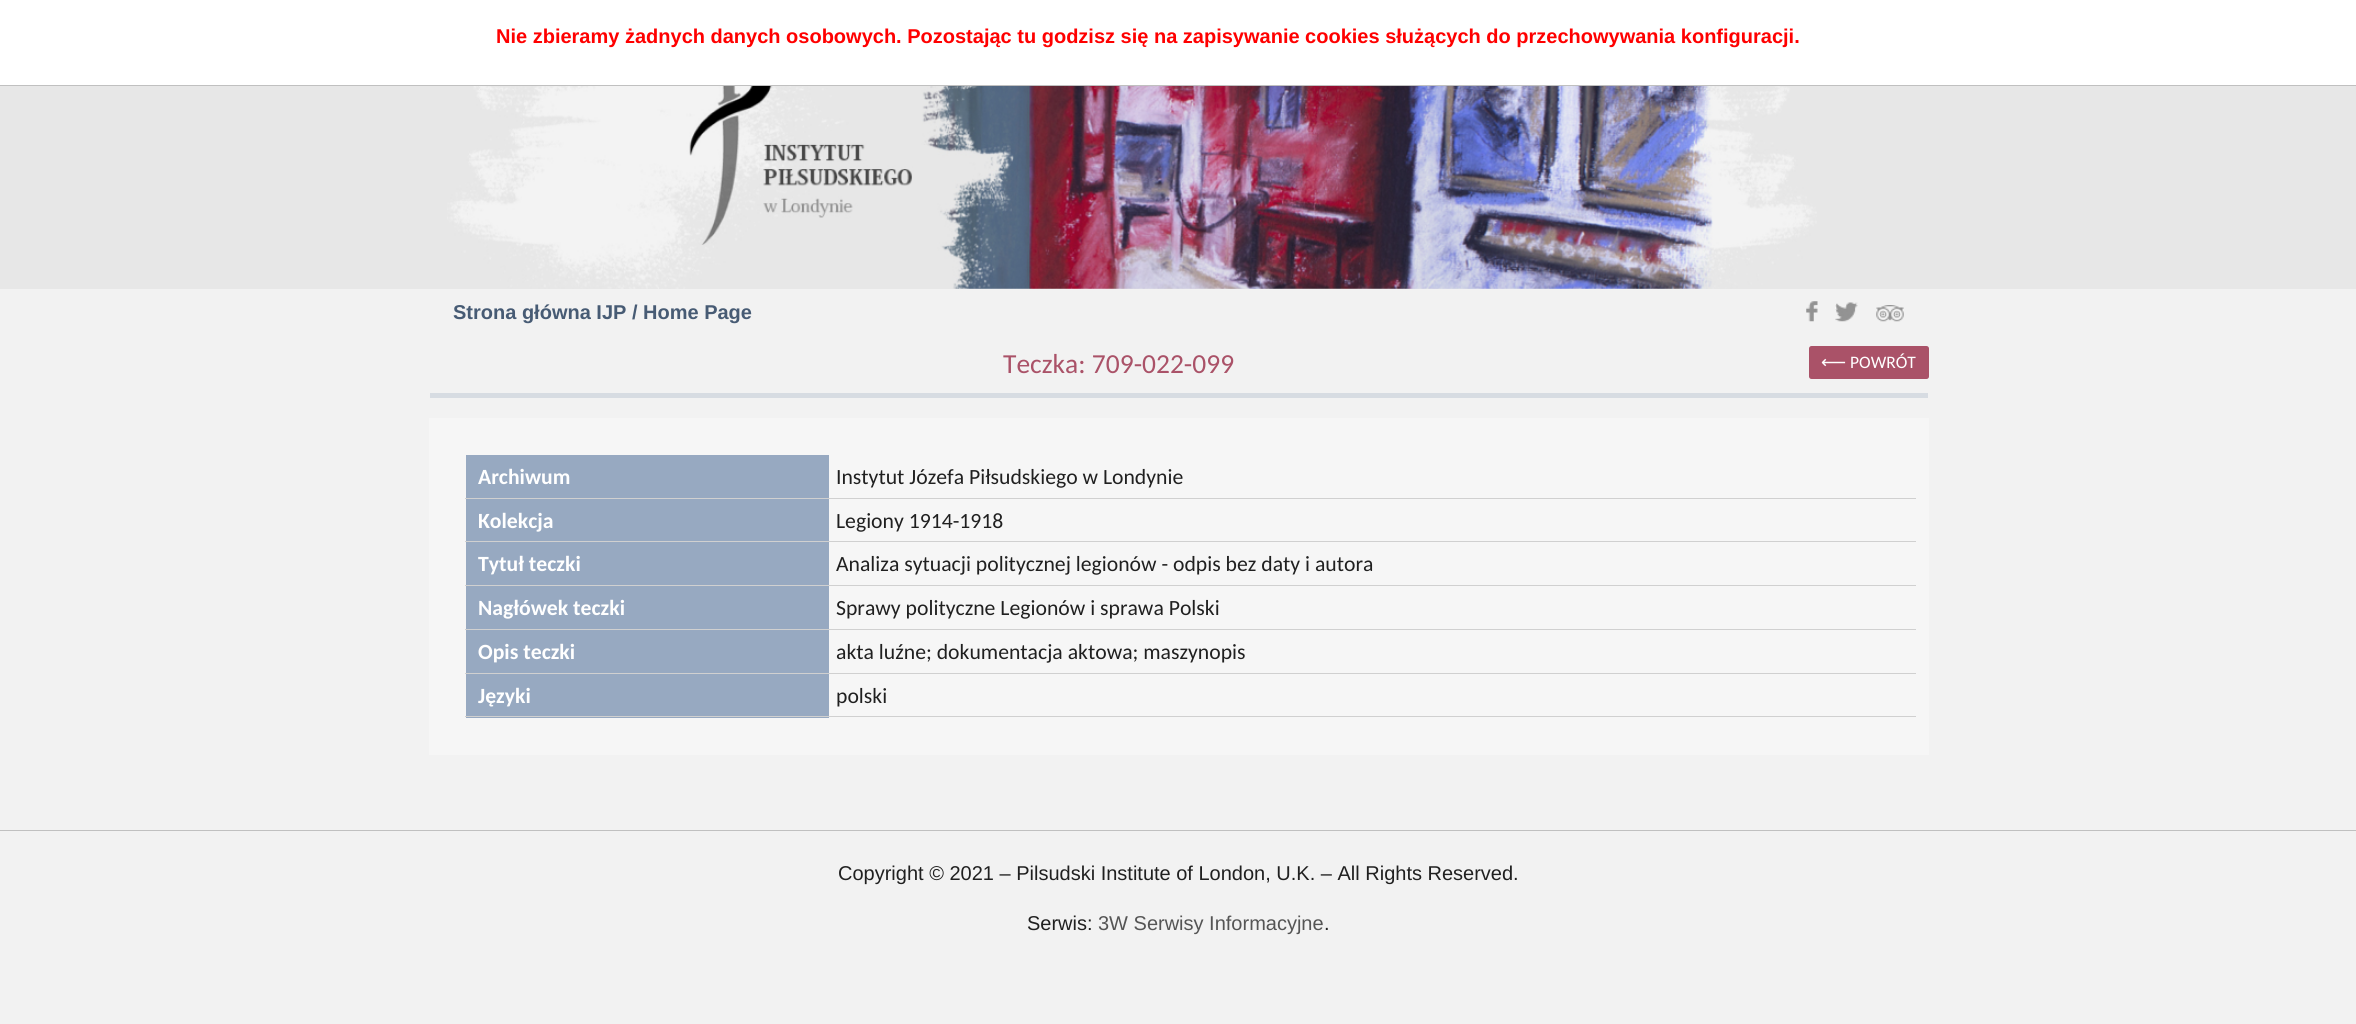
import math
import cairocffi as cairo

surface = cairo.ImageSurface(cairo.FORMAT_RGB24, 2356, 1024)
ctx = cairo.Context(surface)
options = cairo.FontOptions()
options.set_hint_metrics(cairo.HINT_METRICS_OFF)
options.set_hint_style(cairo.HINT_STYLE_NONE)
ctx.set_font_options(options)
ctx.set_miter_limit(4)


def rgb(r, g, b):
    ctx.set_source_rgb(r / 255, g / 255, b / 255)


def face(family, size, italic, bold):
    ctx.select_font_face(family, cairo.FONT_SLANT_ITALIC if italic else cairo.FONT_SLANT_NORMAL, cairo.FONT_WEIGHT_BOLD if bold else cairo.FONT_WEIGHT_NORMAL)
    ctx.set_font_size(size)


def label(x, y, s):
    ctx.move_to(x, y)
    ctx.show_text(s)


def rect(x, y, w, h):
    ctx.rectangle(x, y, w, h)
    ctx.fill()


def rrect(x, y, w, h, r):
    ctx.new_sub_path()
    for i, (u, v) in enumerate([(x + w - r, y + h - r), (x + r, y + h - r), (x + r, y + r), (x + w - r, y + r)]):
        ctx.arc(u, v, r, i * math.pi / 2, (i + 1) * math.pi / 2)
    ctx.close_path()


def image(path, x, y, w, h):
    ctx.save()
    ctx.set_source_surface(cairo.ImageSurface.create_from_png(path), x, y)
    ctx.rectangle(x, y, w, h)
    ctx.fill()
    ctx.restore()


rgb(242, 242, 242)
ctx.paint()
rgb(255, 255, 255)
rect(0, 0, 2356, 85)
rgb(192, 192, 192)
rect(0, 85, 2356, 1)
face('Liberation Sans', 20, 0, 1)
rgb(255, 0, 0)
label(496, 43, 'Nie zbieramy żadnych danych osobowych. Pozostając tu godzisz się na zapisywanie cookies służących do przechowywania konfiguracji.')
rgb(231, 231, 231)
rect(0, 86, 2356, 203)
image('image0.png', 447, 86, 1370, 203)
rgb(71, 91, 116)
label(453, 319, 'Strona główna IJP / Home Page')
image('image1.png', 1806, 301, 12, 21)
image('image2.png', 1835, 302, 23, 20)
image('image3.png', 1876, 305, 28, 17)
rgb(215, 220, 226)
rect(430, 393, 1498, 5)
face('Carlito', 27.5, 0, 0)
rgb(170, 82, 104)
label(1003, 373, 'Teczka: 709-022-099')
rrect(1809, 346, 120, 33, 2.5)
ctx.fill()
face('DejaVu Sans', 17.5, 0, 0)
rgb(255, 255, 255)
label(1821, 368, '⟵')
face('Carlito', 17.5, 0, 0)
label(1850, 368, 'POWRÓT')
rgb(246, 246, 246)
rect(429, 418, 1500, 337)
rgb(208, 208, 208)
rect(465, 498, 1451, 1)
rgb(151, 169, 193)
rect(466, 455, 363, 43)
face('Carlito', 21.7, 0, 1)
rgb(255, 255, 255)
label(478, 484, 'Archiwum')
face('Carlito', 21.7, 0, 0)
rgb(32, 32, 32)
label(836, 484, 'Instytut Józefa Piłsudskiego w Londynie')
rgb(151, 169, 193)
rect(466, 499, 363, 86)
rgb(208, 208, 208)
rect(465, 541, 1451, 1)
face('Carlito', 21.7, 0, 1)
rgb(255, 255, 255)
label(478, 528, 'Kolekcja')
face('Carlito', 21.7, 0, 0)
rgb(32, 32, 32)
label(836, 528, 'Legiony 1914-1918')
rgb(208, 208, 208)
rect(465, 585, 1451, 1)
face('Carlito', 21.7, 0, 1)
rgb(255, 255, 255)
label(478, 571, 'Tytuł teczki')
face('Carlito', 21.7, 0, 0)
rgb(32, 32, 32)
label(836, 571, 'Analiza sytuacji politycznej legionów - odpis bez daty i autora')
rgb(208, 208, 208)
rect(465, 629, 1451, 1)
rgb(151, 169, 193)
rect(466, 586, 363, 43)
face('Carlito', 21.7, 0, 1)
rgb(255, 255, 255)
label(478, 615, 'Nagłówek teczki')
face('Carlito', 21.7, 0, 0)
rgb(32, 32, 32)
label(836, 615, 'Sprawy polityczne Legionów i sprawa Polski')
rgb(208, 208, 208)
rect(465, 673, 1451, 1)
rgb(151, 169, 193)
rect(466, 630, 363, 43)
face('Carlito', 21.7, 0, 1)
rgb(255, 255, 255)
label(478, 659, 'Opis teczki')
face('Carlito', 21.7, 0, 0)
rgb(32, 32, 32)
label(836, 659, 'akta luźne; dokumentacja aktowa; maszynopis')
rgb(151, 169, 193)
rect(466, 674, 363, 44)
rgb(208, 208, 208)
rect(465, 716, 1451, 1)
face('Carlito', 21.7, 0, 1)
rgb(255, 255, 255)
label(478, 703, 'Języki')
face('Carlito', 21.7, 0, 0)
rgb(32, 32, 32)
label(836, 703, 'polski')
rgb(192, 192, 192)
rect(0, 830, 2356, 1)
face('Liberation Sans', 20, 0, 0)
rgb(32, 32, 32)
label(838, 880, 'Copyright © 2021 – Pilsudski Institute of London, U.K. – All Rights Reserved.')
label(1027, 930, 'Serwis:')
rgb(85, 85, 85)
label(1098, 930, '3W Serwisy Informacyjne')
rgb(32, 32, 32)
label(1324, 930, '.')
surface.write_to_png('render.png')
